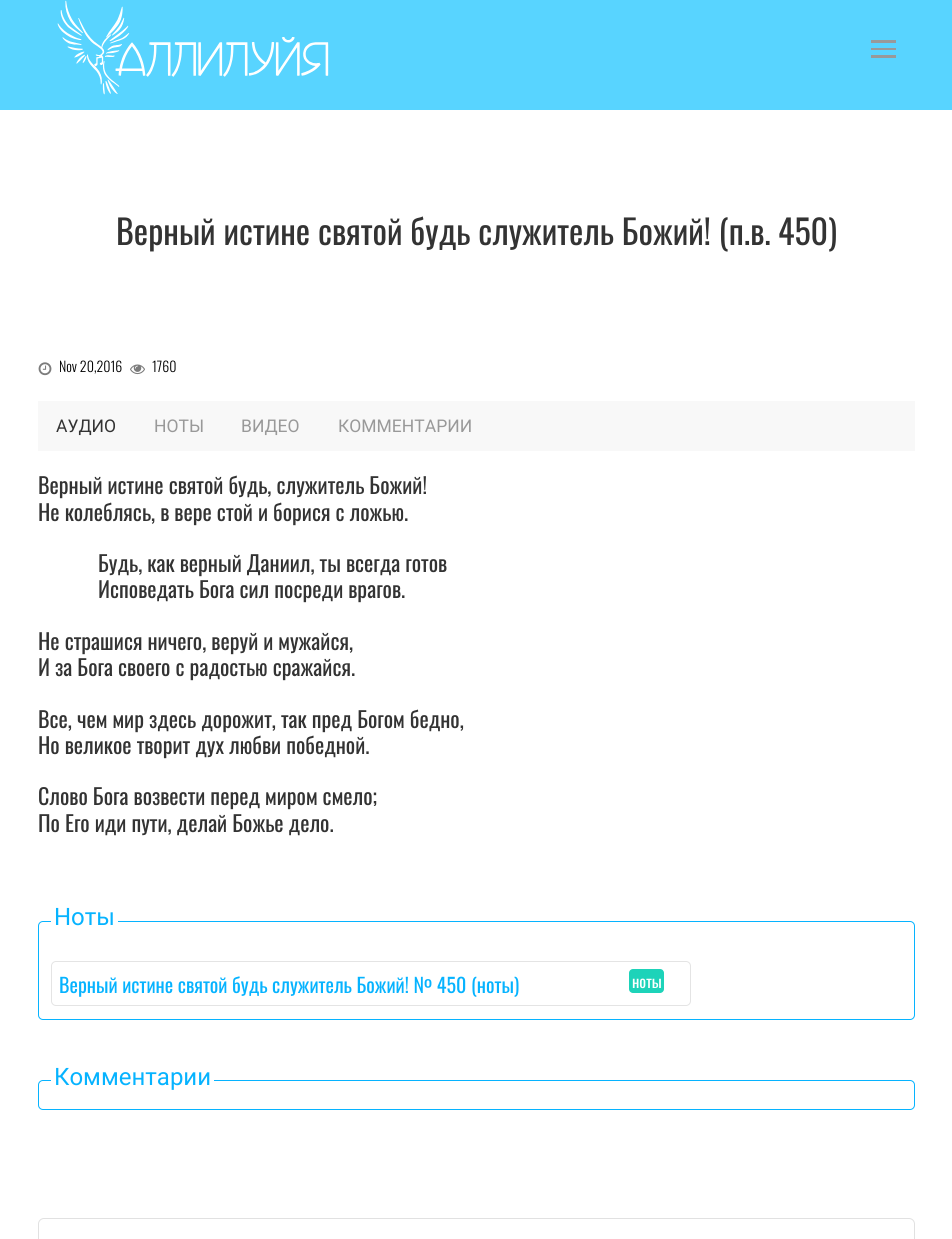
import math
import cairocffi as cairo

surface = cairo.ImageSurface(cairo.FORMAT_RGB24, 952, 1239)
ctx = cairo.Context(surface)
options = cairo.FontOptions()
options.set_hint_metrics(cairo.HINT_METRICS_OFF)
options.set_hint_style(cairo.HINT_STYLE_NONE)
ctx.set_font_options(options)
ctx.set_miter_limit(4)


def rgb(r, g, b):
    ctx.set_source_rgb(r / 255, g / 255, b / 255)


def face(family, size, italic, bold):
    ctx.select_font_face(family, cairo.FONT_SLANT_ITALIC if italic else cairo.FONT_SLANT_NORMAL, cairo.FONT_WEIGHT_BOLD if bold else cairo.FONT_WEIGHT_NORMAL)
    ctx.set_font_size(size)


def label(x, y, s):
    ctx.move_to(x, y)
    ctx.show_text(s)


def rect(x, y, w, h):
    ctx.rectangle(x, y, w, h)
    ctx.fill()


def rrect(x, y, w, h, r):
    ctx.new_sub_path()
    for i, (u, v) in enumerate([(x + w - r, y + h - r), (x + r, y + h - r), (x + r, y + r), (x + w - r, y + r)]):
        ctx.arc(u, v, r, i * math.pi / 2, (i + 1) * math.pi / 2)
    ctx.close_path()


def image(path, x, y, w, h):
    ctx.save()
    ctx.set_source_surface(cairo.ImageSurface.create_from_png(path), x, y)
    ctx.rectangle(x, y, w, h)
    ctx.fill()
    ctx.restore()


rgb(255, 255, 255)
ctx.paint()
rgb(88, 212, 255)
rect(0, 0, 952, 110)
image('image0.png', 57, 0, 272, 95)
rgb(153, 153, 153)
rect(871, 48, 25, 2)
rect(871, 40, 25, 3)
rect(871, 55, 25, 3)
face('Oswald', 34, 0, 0)
rgb(51, 51, 51)
label(116, 245, 'Верный истине святой будь служитель Божий! (п.в.')
label(778, 245, '450)')
image('image1.png', 38, 362, 14, 14)
face('Oswald Light', 14, 0, 0)
rgb(0, 0, 0)
label(59, 372, 'Nov 20,2016')
image('image2.png', 130, 364, 15, 11)
label(152, 372, '1760')
rgb(248, 248, 248)
rect(38, 401, 877, 50)
face('Roboto', 17.5, 0, 0)
rgb(51, 51, 51)
label(56, 432, 'АУДИО')
rgb(153, 153, 153)
label(154, 432, 'НОТЫ')
label(241, 432, 'ВИДЕО')
label(338, 432, 'КОММЕНТАРИИ')
face('Oswald', 22, 0, 0)
rgb(51, 51, 51)
label(38, 494, 'Верный истине святой будь, служитель Божий!')
label(38, 521, 'Не колеблясь, в вере стой и борися с ложью.')
label(98, 572, 'Будь, как верный Даниил, ты всегда готов')
label(98, 598, 'Исповедать Бога сил посреди врагов.')
label(38, 650, 'Не страшися ничего, веруй и мужайся,')
label(38, 676, 'И за Бога своего с радостью сражайся.')
label(38, 728, 'Все, чем мир здесь дорожит, так пред Богом бедно,')
label(38, 754, 'Но великое творит дух любви победной.')
label(38, 805, 'Слово Бога возвести перед миром смело;')
label(38, 832, 'По Его иди пути, делай Божье дело.')
rrect(38.5, 921.5, 876, 98, 4.5)
rgb(6, 179, 255)
ctx.set_line_width(1)
ctx.stroke()
rgb(255, 255, 255)
rect(51, 921, 67, 1)
face('Roboto', 24, 0, 0)
rgb(6, 179, 255)
label(54, 925, 'Ноты')
rrect(51.5, 961.5, 639, 44, 4.5)
rgb(228, 228, 228)
ctx.stroke()
face('Oswald', 20, 0, 0)
rgb(6, 179, 255)
label(59, 993, 'Верный истине святой будь служитель Божий! № 450 (ноты)')
rgb(29, 211, 185)
rrect(629, 969, 35, 24, 4)
ctx.fill()
face('Oswald', 16, 0, 0)
rgb(255, 255, 255)
label(632, 988, 'ноты')
rrect(38.5, 1080.5, 876, 29, 4.5)
rgb(6, 179, 255)
ctx.stroke()
rgb(255, 255, 255)
rect(51, 1080, 163, 1)
face('Roboto', 24, 0, 0)
rgb(6, 179, 255)
label(54, 1085, 'Комментарии')
rrect(38.5, 1218.5, 876, 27, 5.5)
rgb(225, 225, 225)
ctx.stroke()
surface.write_to_png('render.png')
